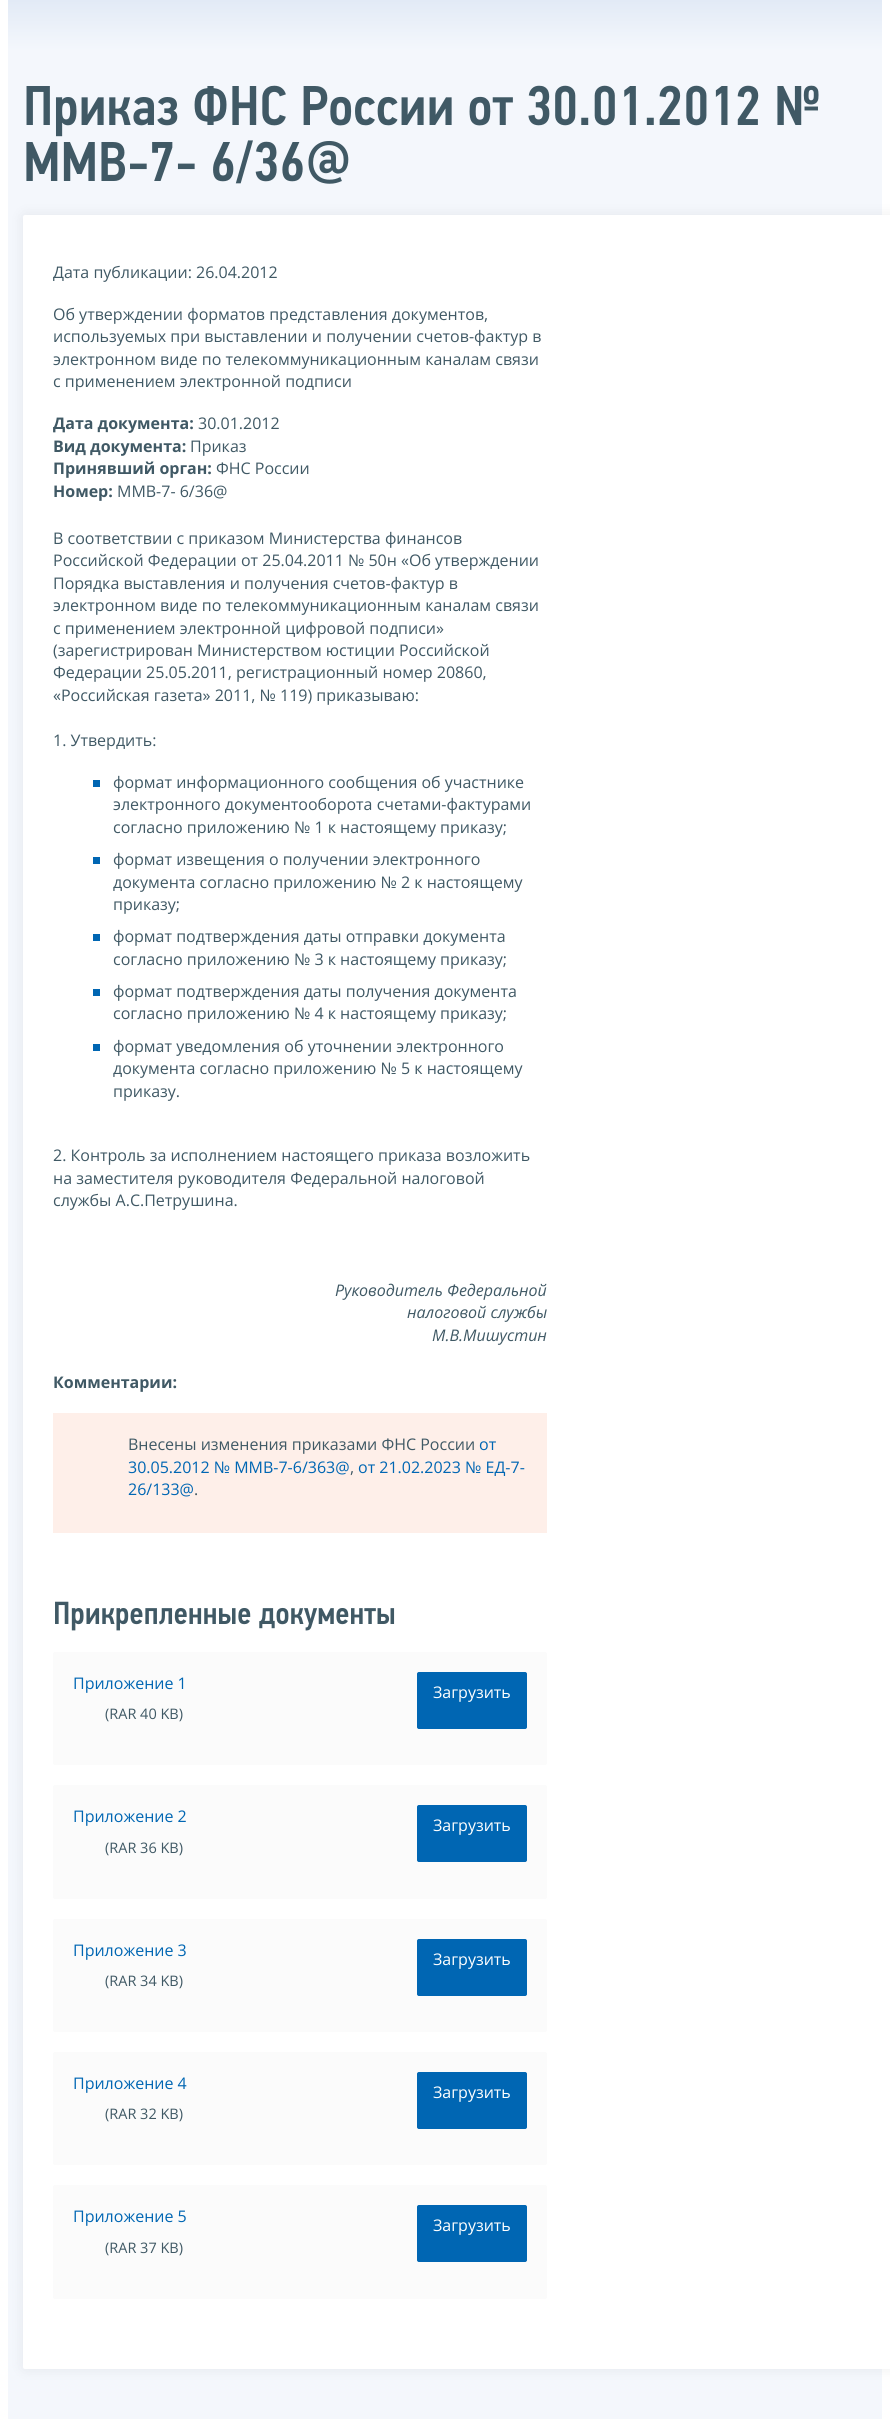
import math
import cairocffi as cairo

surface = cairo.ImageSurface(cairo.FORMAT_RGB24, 890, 2427)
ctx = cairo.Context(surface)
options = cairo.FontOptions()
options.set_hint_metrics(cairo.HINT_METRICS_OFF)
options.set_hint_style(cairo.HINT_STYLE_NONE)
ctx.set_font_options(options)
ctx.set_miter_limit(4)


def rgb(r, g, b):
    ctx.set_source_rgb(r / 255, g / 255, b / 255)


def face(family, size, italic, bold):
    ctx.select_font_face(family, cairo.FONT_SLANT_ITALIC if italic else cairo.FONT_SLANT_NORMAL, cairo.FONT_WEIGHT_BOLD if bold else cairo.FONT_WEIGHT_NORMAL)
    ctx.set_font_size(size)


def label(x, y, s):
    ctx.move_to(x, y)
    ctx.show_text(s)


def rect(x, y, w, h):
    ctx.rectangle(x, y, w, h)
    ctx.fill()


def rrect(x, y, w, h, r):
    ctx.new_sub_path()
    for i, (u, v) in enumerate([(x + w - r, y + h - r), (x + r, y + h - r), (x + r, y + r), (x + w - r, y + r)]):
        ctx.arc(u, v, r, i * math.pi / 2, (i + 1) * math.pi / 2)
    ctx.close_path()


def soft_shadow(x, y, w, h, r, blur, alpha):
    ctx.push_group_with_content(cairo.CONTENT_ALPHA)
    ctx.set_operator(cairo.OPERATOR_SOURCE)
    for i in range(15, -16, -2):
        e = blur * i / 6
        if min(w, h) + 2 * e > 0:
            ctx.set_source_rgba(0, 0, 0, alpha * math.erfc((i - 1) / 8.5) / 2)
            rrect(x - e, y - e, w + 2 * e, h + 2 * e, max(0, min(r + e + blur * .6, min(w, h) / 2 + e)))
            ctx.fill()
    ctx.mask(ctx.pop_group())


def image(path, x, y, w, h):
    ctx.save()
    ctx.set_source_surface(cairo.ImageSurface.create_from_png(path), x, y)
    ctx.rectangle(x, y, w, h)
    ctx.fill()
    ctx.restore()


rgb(255, 255, 255)
ctx.paint()
rgb(244, 247, 252)
rect(8, 50, 874, 2369)
gradient = cairo.LinearGradient(445, 0, 445, 50)
gradient.add_color_stop_rgba(0, 0.886, 0.918, 0.965, 1)
gradient.add_color_stop_rgba(1, 0.957, 0.969, 0.988, 1)
ctx.set_source(gradient)
rect(8, 0, 874, 50)
image('image0.png', 26, 85, 793, 52)
image('image1.png', 26, 140, 323, 44)
rgb(0, 0, 0)
soft_shadow(23, 215, 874, 2154, 2, 7.5, 0.07)
rgb(255, 255, 255)
rrect(23, 215, 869, 2154, 2)
ctx.fill()
face('Open Sans', 16, 0, 0)
rgb(64, 89, 101)
label(53, 278, 'Дата публикации: 26.04.2012')
label(53, 320, 'Об утверждении форматов представления документов,')
label(53, 342, 'используемых при выставлении и получении счетов-фактур в')
label(53, 365, 'электронном виде по телекоммуникационным каналам связи')
label(53, 387, 'с применением электронной подписи')
face('Open Sans', 16, 0, 1)
label(53, 429, 'Дата документа:')
face('Open Sans', 16, 0, 0)
label(198, 429, '30.01.2012')
face('Open Sans', 16, 0, 1)
label(53, 452, 'Вид документа:')
face('Open Sans', 16, 0, 0)
label(190, 452, 'Приказ')
face('Open Sans', 16, 0, 1)
label(53, 474, 'Принявший орган:')
face('Open Sans', 16, 0, 0)
label(216, 474, 'ФНС России')
face('Open Sans', 16, 0, 1)
label(53, 497, 'Номер:')
face('Open Sans', 16, 0, 0)
label(117, 497, 'ММВ-7- 6/36@')
label(53, 544, 'В соответствии с приказом Министерства финансов')
label(53, 566, 'Российской Федерации от 25.04.2011 № 50н «Об утверждении')
label(53, 589, 'Порядка выставления и получения счетов-фактур в')
label(53, 611, 'электронном виде по телекоммуникационным каналам связи')
label(53, 634, 'с применением электронной цифровой подписи»')
label(53, 656, '(зарегистрирован Министерством юстиции Российской')
label(53, 678, 'Федерации 25.05.2011, регистрационный номер 20860,')
label(53, 701, '«Российская газета» 2011, № 119) приказываю:')
label(53, 746, '1. Утвердить:')
rgb(0, 102, 179)
rect(93, 780, 7, 7)
rgb(64, 89, 101)
label(113, 788, 'формат информационного сообщения об участнике')
label(113, 810, 'электронного документооборота счетами-фактурами')
label(113, 833, 'согласно приложению № 1 к настоящему приказу;')
rgb(0, 102, 179)
rect(93, 857, 7, 7)
rgb(64, 89, 101)
label(113, 865, 'формат извещения о получении электронного')
label(113, 888, 'документа согласно приложению № 2 к настоящему')
label(113, 910, 'приказу;')
rgb(0, 102, 179)
rect(93, 934, 7, 7)
rgb(64, 89, 101)
label(113, 942, 'формат подтверждения даты отправки документа')
label(113, 965, 'согласно приложению № 3 к настоящему приказу;')
rgb(0, 102, 179)
rect(93, 989, 7, 7)
rgb(64, 89, 101)
label(113, 997, 'формат подтверждения даты получения документа')
label(113, 1019, 'согласно приложению № 4 к настоящему приказу;')
rgb(0, 102, 179)
rect(93, 1044, 7, 7)
rgb(64, 89, 101)
label(113, 1052, 'формат уведомления об уточнении электронного')
label(113, 1074, 'документа согласно приложению № 5 к настоящему')
label(113, 1097, 'приказу.')
label(53, 1161, '2. Контроль за исполнением настоящего приказа возложить')
label(53, 1184, 'на заместителя руководителя Федеральной налоговой')
label(53, 1206, 'службы А.С.Петрушина.')
face('Open Sans', 16, 1, 0)
label(335, 1296, 'Руководитель Федеральной')
label(407, 1318, 'налоговой службы')
label(432, 1341, 'М.В.Мишустин')
face('Open Sans', 16, 0, 1)
label(53, 1388, 'Комментарии:')
rgb(254, 239, 233)
rect(53, 1413, 494, 120)
face('Open Sans', 16, 0, 0)
rgb(64, 89, 101)
label(128, 1450, 'Внесены изменения приказами ФНС России')
rgb(0, 102, 179)
label(479, 1450, 'от')
label(128, 1473, '30.05.2012 № ММВ-7-6/363@')
rgb(64, 89, 101)
label(350, 1473, ',')
rgb(0, 102, 179)
label(358, 1473, 'от 21.02.2023 № ЕД-7-')
label(128, 1495, '26/133@')
rgb(64, 89, 101)
label(194, 1495, '.')
image('image2.png', 55, 1601, 340, 30)
rgb(251, 251, 251)
rrect(53, 1652, 494, 113, 2)
ctx.fill()
rgb(0, 102, 179)
label(73, 1689, 'Приложение 1')
face('Open Sans', 14.5, 0, 0)
rgb(64, 89, 101)
label(105, 1719, '(RAR 40 KB)')
rgb(0, 102, 179)
rrect(417.5, 1672.5, 109, 56, 1.5)
ctx.fill_preserve()
ctx.set_line_width(1)
ctx.stroke()
face('Open Sans', 16, 0, 0)
rgb(255, 255, 255)
label(433, 1698, 'Загрузить')
rgb(251, 251, 251)
rrect(53, 1785, 494, 114, 2)
ctx.fill()
rgb(0, 102, 179)
label(73, 1822, 'Приложение 2')
face('Open Sans', 14.5, 0, 0)
rgb(64, 89, 101)
label(105, 1853, '(RAR 36 KB)')
rgb(0, 102, 179)
rrect(417.5, 1805.5, 109, 56, 1.5)
ctx.fill_preserve()
ctx.stroke()
face('Open Sans', 16, 0, 0)
rgb(255, 255, 255)
label(433, 1831, 'Загрузить')
rgb(251, 251, 251)
rrect(53, 1919, 494, 113, 2)
ctx.fill()
rgb(0, 102, 179)
label(73, 1956, 'Приложение 3')
face('Open Sans', 14.5, 0, 0)
rgb(64, 89, 101)
label(105, 1986, '(RAR 34 KB)')
rgb(0, 102, 179)
rrect(417.5, 1939.5, 109, 56, 1.5)
ctx.fill_preserve()
ctx.stroke()
face('Open Sans', 16, 0, 0)
rgb(255, 255, 255)
label(433, 1965, 'Загрузить')
rgb(251, 251, 251)
rrect(53, 2052, 494, 113, 2)
ctx.fill()
rgb(0, 102, 179)
label(73, 2089, 'Приложение 4')
face('Open Sans', 14.5, 0, 0)
rgb(64, 89, 101)
label(105, 2119, '(RAR 32 KB)')
rgb(0, 102, 179)
rrect(417.5, 2072.5, 109, 56, 1.5)
ctx.fill_preserve()
ctx.stroke()
face('Open Sans', 16, 0, 0)
rgb(255, 255, 255)
label(433, 2098, 'Загрузить')
rgb(251, 251, 251)
rrect(53, 2185, 494, 114, 2)
ctx.fill()
rgb(0, 102, 179)
label(73, 2222, 'Приложение 5')
face('Open Sans', 14.5, 0, 0)
rgb(64, 89, 101)
label(105, 2253, '(RAR 37 KB)')
rgb(0, 102, 179)
rrect(417.5, 2205.5, 109, 56, 1.5)
ctx.fill_preserve()
ctx.stroke()
face('Open Sans', 16, 0, 0)
rgb(255, 255, 255)
label(433, 2231, 'Загрузить')
surface.write_to_png('render.png')
